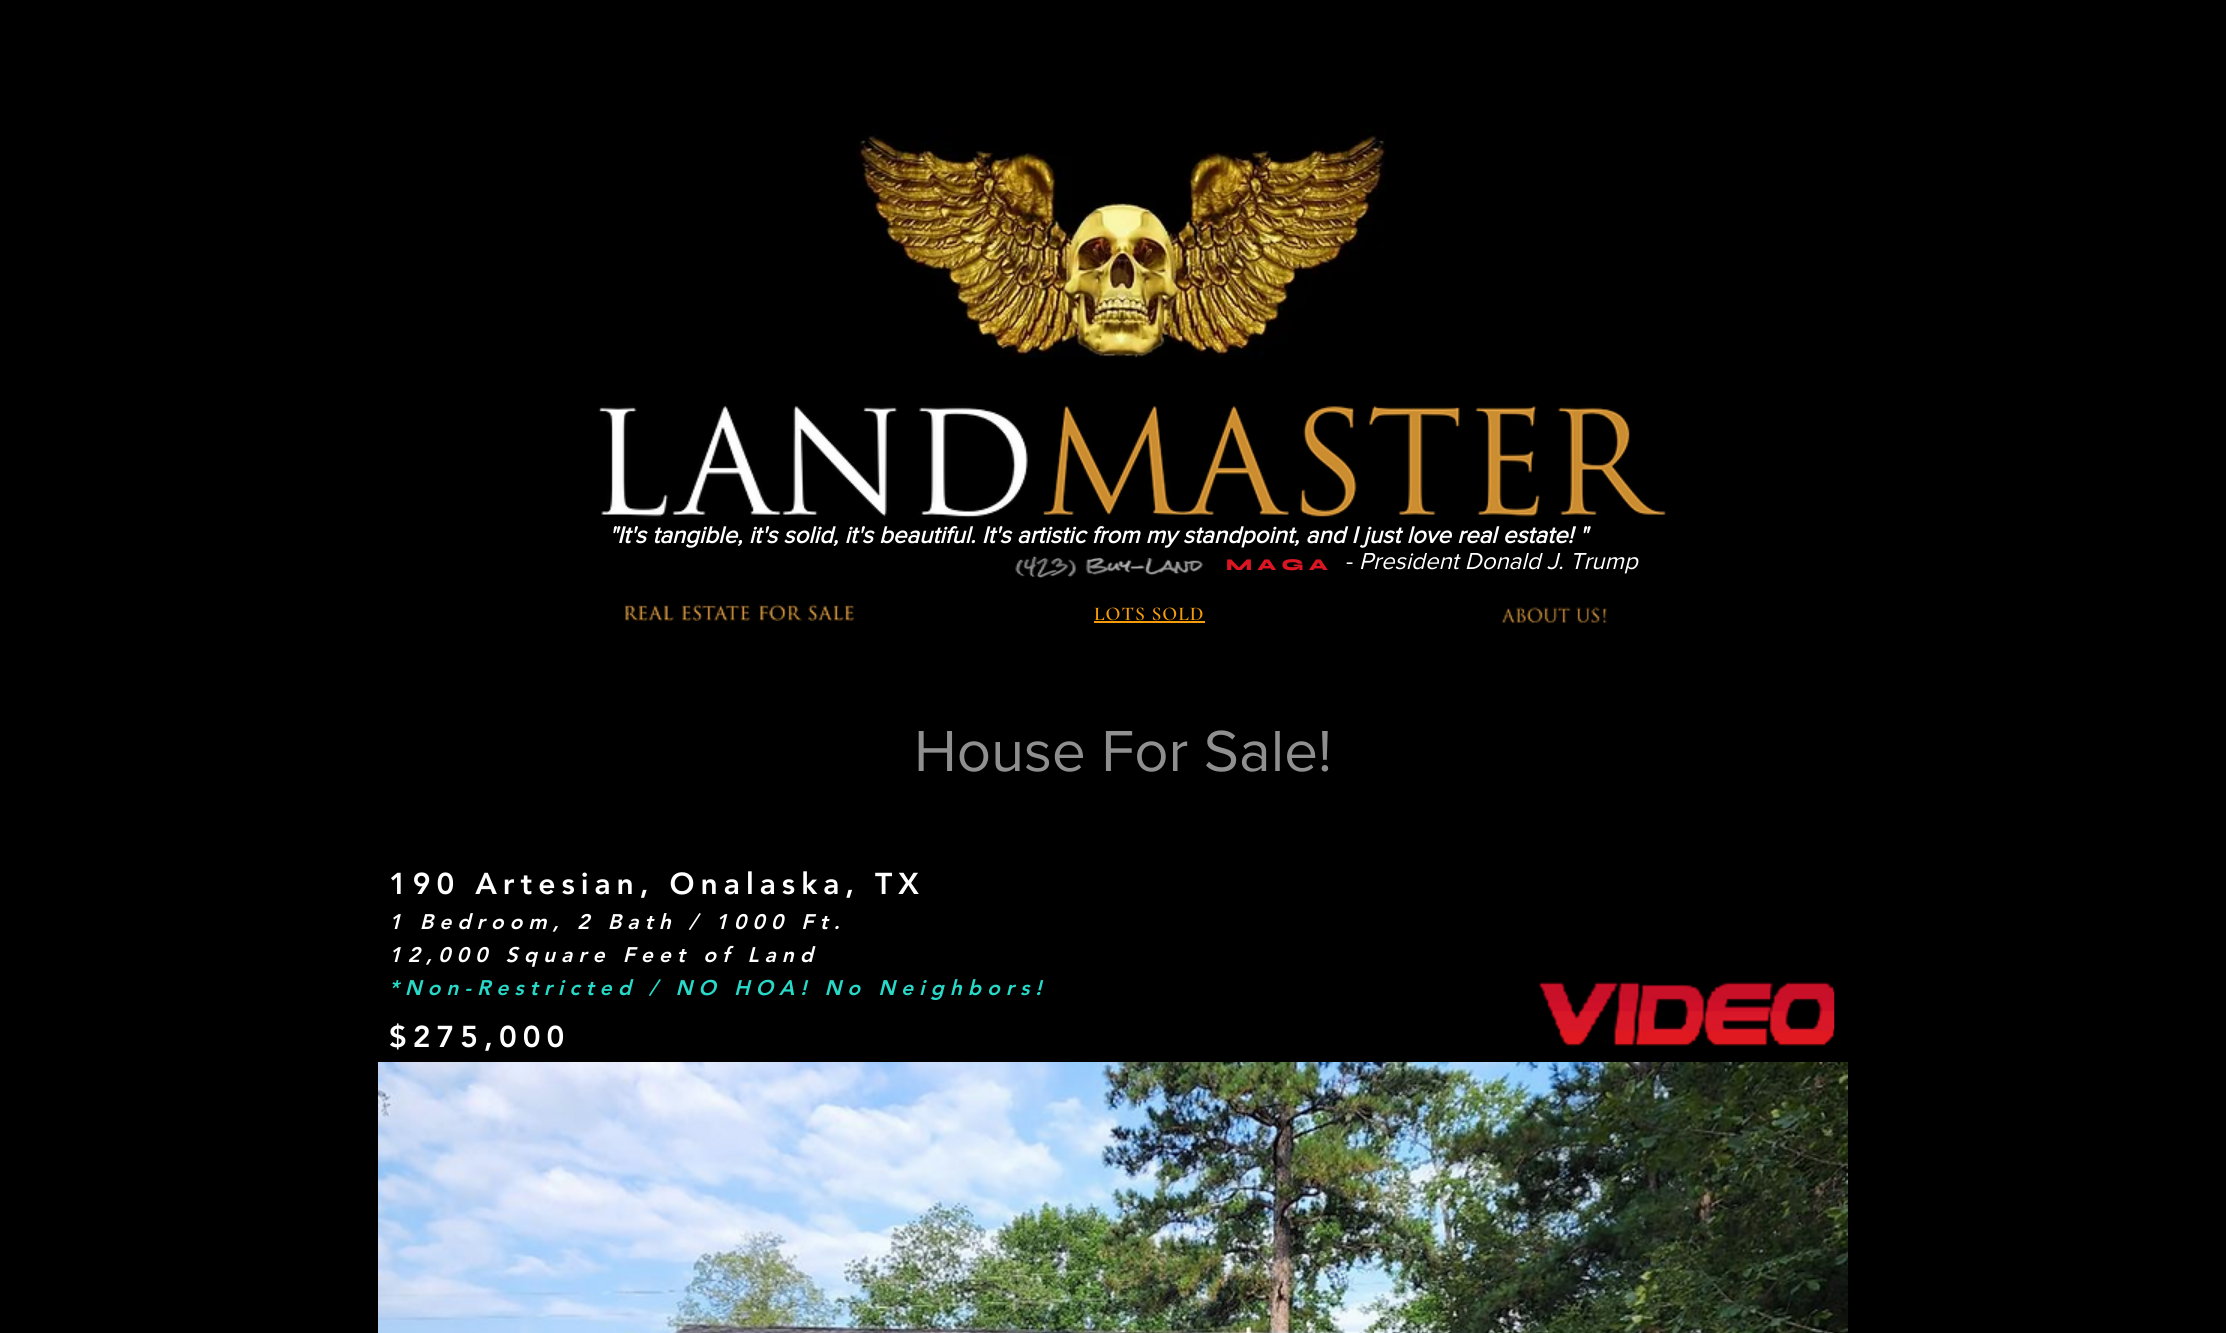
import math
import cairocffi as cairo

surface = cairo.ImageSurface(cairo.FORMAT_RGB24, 2226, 1333)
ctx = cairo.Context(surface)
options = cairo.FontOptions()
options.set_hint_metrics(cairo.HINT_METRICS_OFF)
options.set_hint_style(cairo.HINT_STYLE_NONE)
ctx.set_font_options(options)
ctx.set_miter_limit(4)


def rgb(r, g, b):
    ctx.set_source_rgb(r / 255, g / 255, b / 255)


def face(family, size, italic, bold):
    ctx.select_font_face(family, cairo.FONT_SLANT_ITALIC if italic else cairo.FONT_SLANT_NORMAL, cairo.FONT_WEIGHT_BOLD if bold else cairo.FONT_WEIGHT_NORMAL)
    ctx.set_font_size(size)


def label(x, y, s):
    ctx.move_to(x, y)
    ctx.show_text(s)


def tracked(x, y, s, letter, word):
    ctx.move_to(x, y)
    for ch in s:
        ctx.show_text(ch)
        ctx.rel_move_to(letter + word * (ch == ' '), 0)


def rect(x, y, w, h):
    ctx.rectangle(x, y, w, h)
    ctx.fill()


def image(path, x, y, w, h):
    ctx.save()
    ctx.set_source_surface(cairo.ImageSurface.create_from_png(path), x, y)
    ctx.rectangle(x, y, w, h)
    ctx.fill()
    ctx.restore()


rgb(0, 0, 0)
ctx.paint()
image('image0.png', 856, 129, 530, 229)
image('image1.png', 598, 405, 1068, 114)
face('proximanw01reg', 24, 1, 1)
rgb(255, 255, 255)
label(609, 543, '"It\'s tangible, it\'s solid, it\'s beautiful. It\'s artistic from my standpoint, and I just love real estate! "')
face('proximanw01reg', 24, 0, 0)
label(1346, 569, '-')
face('proximanw01reg', 24, 1, 0)
label(1359, 569, 'President Donald J. Trump')
image('image2.png', 1015, 556, 189, 22)
face('Syne ExtraBold', 16.5, 0, 0)
rgb(219, 22, 34)
label(1226, 570, 'M A G A')
image('image3.png', 624, 604, 230, 17)
face('Cormorant Garamond SemiBold', 19.5, 0, 0)
rgb(245, 156, 10)
tracked(1094, 620, 'LOTS SOLD', 1, 0)
rect(1094, 621, 111, 2)
image('image4.png', 1501, 607, 106, 16)
face('proximanw01reg', 60, 0, 0)
rgb(143, 143, 143)
label(914, 771, 'House For Sale!')
face('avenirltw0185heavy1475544 Black', 30, 0, 0)
rgb(255, 255, 255)
tracked(389, 894, '190 Artesian, Onalaska, TX', 6, 0)
face('avenirltw0185heavy1475544 Black', 21, 1, 0)
tracked(389, 929, '1 Bedroom, 2 Bath / 1000 Ft.', 6, 0)
tracked(389, 962, '12,000 Square Feet of Land', 6, 0)
rgb(40, 217, 199)
tracked(389, 995, '*Non-Restricted / NO HOA! No Neighbors!', 6, 0)
face('avenirltw0185heavy1475544 Black', 30, 0, 0)
rgb(255, 255, 255)
tracked(389, 1047, '$275,000', 6, 0)
image('image5.png', 1538, 982, 297, 64)
image('image6.png', 378, 1062, 1470, 271)
surface.write_to_png('render.png')
